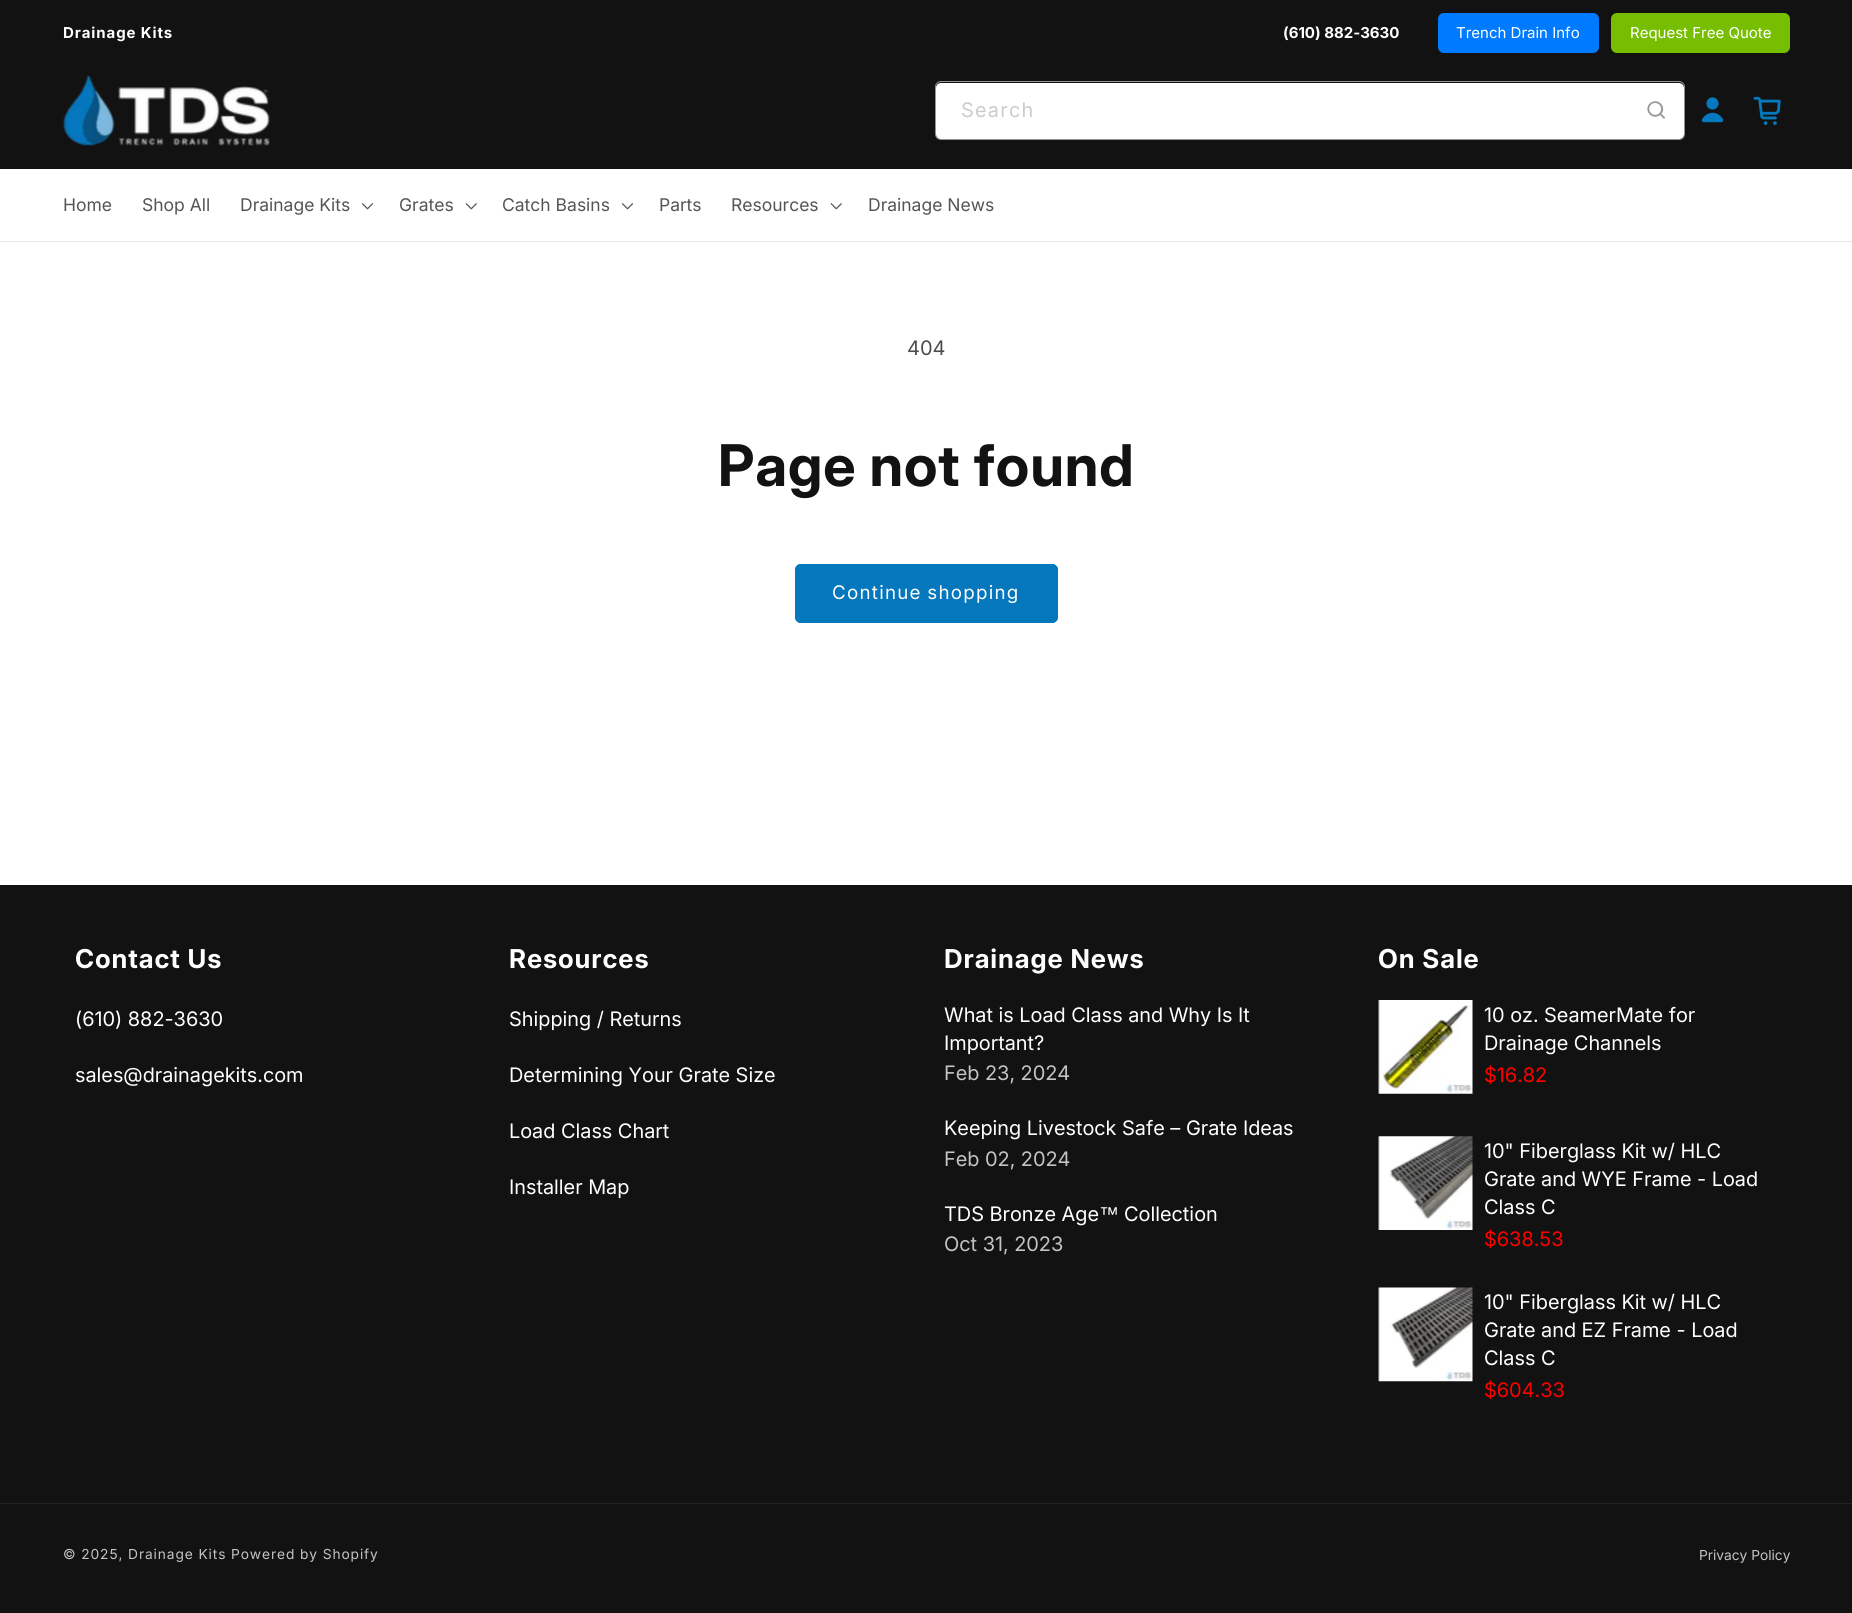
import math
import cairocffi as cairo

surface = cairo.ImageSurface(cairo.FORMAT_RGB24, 1852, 1613)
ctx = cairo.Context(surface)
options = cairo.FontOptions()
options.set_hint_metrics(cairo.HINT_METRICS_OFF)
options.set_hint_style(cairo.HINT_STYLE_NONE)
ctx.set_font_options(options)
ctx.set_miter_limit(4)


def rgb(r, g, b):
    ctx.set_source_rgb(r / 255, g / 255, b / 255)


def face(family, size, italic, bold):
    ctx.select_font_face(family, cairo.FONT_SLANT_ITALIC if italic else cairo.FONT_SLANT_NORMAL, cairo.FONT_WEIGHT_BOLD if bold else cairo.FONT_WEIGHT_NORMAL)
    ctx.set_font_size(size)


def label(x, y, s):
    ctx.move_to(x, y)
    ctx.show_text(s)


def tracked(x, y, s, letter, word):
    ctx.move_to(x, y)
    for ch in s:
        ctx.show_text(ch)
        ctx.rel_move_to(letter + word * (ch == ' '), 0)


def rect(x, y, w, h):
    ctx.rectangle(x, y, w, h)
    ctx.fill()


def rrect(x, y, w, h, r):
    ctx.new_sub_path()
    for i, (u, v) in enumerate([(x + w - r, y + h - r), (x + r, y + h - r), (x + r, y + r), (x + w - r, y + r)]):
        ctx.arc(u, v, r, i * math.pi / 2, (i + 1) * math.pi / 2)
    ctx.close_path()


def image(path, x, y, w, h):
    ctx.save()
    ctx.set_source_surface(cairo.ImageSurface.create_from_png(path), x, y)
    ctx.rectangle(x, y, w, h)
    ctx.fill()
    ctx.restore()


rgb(255, 255, 255)
ctx.paint()
rgb(18, 18, 18)
rect(0, 0, 1852, 169)
face('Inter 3', 15, 0, 1)
rgb(255, 255, 255)
tracked(63, 38, 'Drainage Kits', 0.9, 0)
label(1283, 38, '(610) 882-3630')
rgb(0, 123, 255)
rrect(1438, 13, 161, 40, 6)
ctx.fill()
face('Inter', 15, 0, 0)
rgb(255, 255, 255)
label(1456, 38, 'Trench Drain Info')
rgb(119, 190, 0)
rrect(1611, 13, 179, 40, 6)
ctx.fill()
rgb(255, 255, 255)
label(1630, 38, 'Request Free Quote')
image('image0.png', 63, 75, 207, 71)
rrect(936, 83, 748, 56, 5)
ctx.fill()
image('image1.png', 1647, 101, 19, 18)
rrect(935.5, 81.5, 749, 58, 5.5)
ctx.set_source_rgba(1, 1, 1, 0.55)
ctx.set_line_width(1)
ctx.stroke()
face('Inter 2', 20, 0, 0)
rgb(204, 204, 204)
tracked(961, 117, 'Search', 1.25, 0)
image('image2.png', 1701, 97, 23, 26)
image('image3.png', 1753, 96, 28, 29)
rgb(231, 231, 231)
rect(0, 241, 1852, 1)
face('Inter', 17.5, 0, 0)
rgb(85, 85, 85)
label(63, 211, 'Home')
label(142, 211, 'Shop All')
label(240, 211, 'Drainage Kits')
image('image4.png', 361, 203, 13, 7)
label(399, 211, 'Grates')
image('image5.png', 465, 203, 12, 7)
label(502, 211, 'Catch Basins')
image('image4.png', 621, 203, 13, 7)
label(659, 211, 'Parts')
label(731, 211, 'Resources')
image('image5.png', 830, 203, 12, 7)
label(868, 211, 'Drainage News')
face('Inter', 20, 0, 0)
rgb(77, 77, 77)
label(907, 355, '404')
face('Inter', 57.5, 0, 1)
rgb(18, 18, 18)
tracked(718, 486, 'Page not found', 0.9, 0)
rgb(4, 119, 189)
rrect(795, 564, 263, 59, 6)
ctx.fill()
rrect(795.5, 564.5, 262, 58, 5.5)
ctx.stroke()
face('Inter', 18.75, 0, 0)
rgb(255, 255, 255)
tracked(832, 599, 'Continue shopping', 1.25, -1)
rgb(18, 18, 18)
rect(0, 885, 1852, 728)
face('Inter 2', 26, 0, 1)
rgb(255, 255, 255)
tracked(75, 968, 'Contact Us', 0.9, 0)
face('Inter 2', 20, 0, 0)
label(75, 1026, '(610) 882-3630')
label(75, 1082, 'sales@drainagekits.com')
face('Inter 2', 26, 0, 1)
tracked(509, 968, 'Resources', 0.9, 0)
face('Inter 2', 20, 0, 0)
label(509, 1026, 'Shipping / Returns')
label(509, 1082, 'Determining Your Grate Size')
label(509, 1138, 'Load Class Chart')
label(509, 1194, 'Installer Map')
face('Inter 2', 26, 0, 1)
tracked(944, 968, 'Drainage News', 0.9, 0)
face('Inter 2', 20, 0, 0)
label(944, 1022, 'What is Load Class and Why Is It')
label(944, 1050, 'Important?')
rgb(196, 196, 196)
label(944, 1080, 'Feb 23, 2024')
rgb(255, 255, 255)
label(944, 1135, 'Keeping Livestock Safe – Grate Ideas')
rgb(196, 196, 196)
label(944, 1166, 'Feb 02, 2024')
rgb(255, 255, 255)
label(944, 1221, 'TDS Bronze Age')
face('Liberation Sans', 20, 0, 0)
label(1099, 1221, '™')
face('Inter 2', 20, 0, 0)
label(1124, 1221, 'Collection')
rgb(196, 196, 196)
label(944, 1251, 'Oct 31, 2023')
face('Inter 2', 26, 0, 1)
rgb(255, 255, 255)
tracked(1378, 968, 'On Sale', 0.9, 0)
image('image6.png', 1378, 1000, 95, 94)
face('Inter 2', 20, 0, 0)
label(1484, 1022, '10 oz. SeamerMate for')
label(1484, 1050, 'Drainage Channels')
rgb(255, 0, 0)
label(1484, 1082, '$16.82')
image('image7.png', 1378, 1136, 95, 94)
rgb(255, 255, 255)
label(1484, 1158, '10" Fiberglass Kit w/ HLC')
label(1484, 1186, 'Grate and WYE Frame - Load')
label(1484, 1214, 'Class C')
rgb(255, 0, 0)
label(1484, 1246, '$638.53')
image('image8.png', 1378, 1287, 95, 95)
rgb(255, 255, 255)
label(1484, 1309, '10" Fiberglass Kit w/ HLC')
label(1484, 1337, 'Grate and EZ Frame - Load')
label(1484, 1365, 'Class C')
rgb(255, 0, 0)
label(1484, 1397, '$604.33')
rgb(37, 37, 37)
rect(0, 1503, 1852, 1)
face('Inter', 13.75, 0, 0)
rgb(196, 196, 196)
tracked(63, 1559, '© 2025, Drainage Kits', 0.9, 0)
tracked(231, 1559, 'Powered by Shopify', 0.9, 0)
label(1699, 1560, 'Privacy Policy')
surface.write_to_png('render.png')
